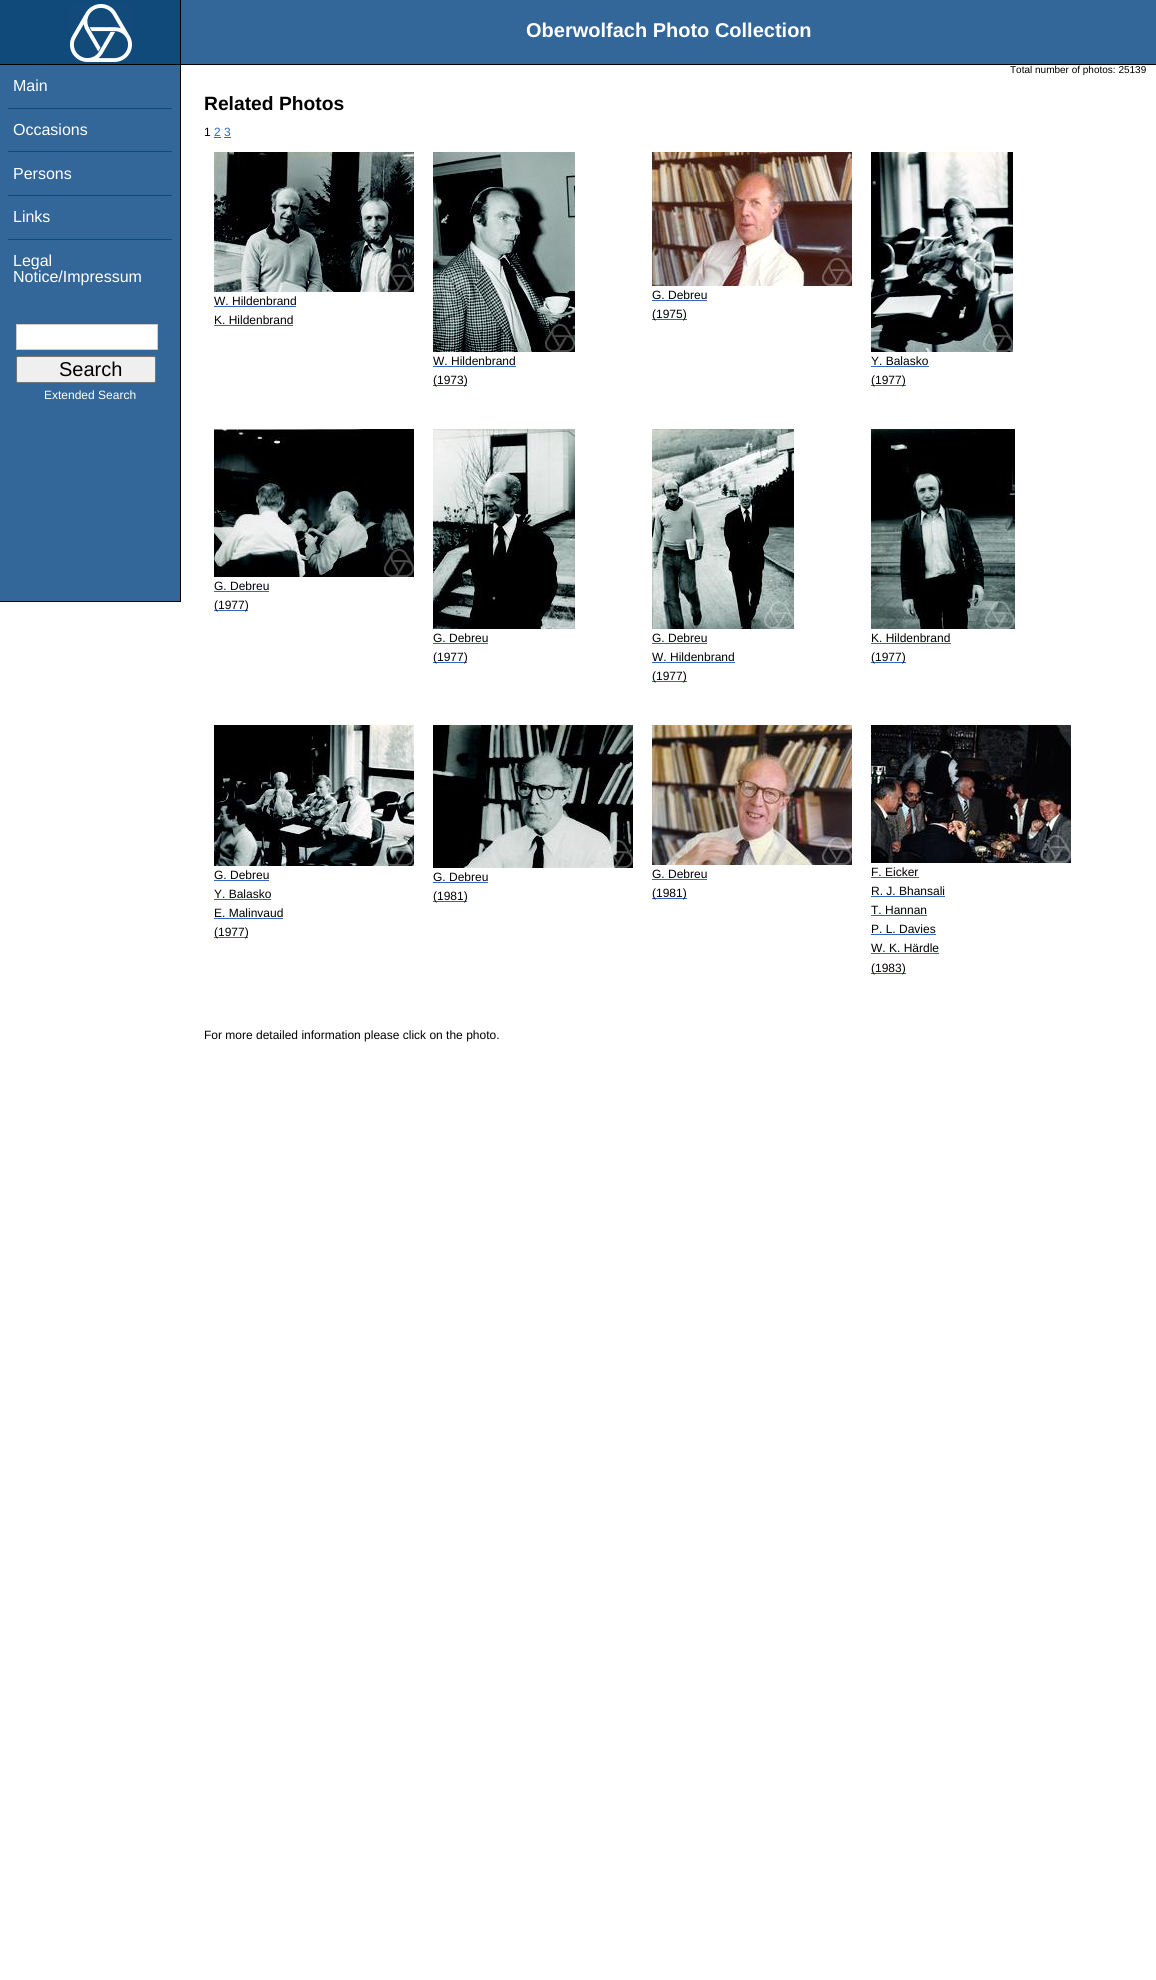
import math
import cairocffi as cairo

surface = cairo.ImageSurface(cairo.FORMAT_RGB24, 1156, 1980)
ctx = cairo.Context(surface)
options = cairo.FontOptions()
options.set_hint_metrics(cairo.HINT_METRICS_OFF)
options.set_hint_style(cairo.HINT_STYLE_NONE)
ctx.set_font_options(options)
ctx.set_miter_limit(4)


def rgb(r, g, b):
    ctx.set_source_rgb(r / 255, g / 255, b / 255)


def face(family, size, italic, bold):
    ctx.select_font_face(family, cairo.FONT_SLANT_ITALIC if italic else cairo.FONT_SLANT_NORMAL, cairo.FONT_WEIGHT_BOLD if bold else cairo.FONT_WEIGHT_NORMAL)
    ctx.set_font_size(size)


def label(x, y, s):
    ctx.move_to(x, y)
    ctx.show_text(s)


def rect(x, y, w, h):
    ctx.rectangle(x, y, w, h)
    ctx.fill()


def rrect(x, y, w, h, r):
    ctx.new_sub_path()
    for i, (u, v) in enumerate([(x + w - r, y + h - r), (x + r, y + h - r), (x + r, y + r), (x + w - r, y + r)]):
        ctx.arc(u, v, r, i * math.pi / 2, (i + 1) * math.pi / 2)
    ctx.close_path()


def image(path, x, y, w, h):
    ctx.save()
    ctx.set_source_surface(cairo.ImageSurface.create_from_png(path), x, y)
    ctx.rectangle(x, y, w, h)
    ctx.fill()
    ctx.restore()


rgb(255, 255, 255)
ctx.paint()
rgb(51, 102, 153)
rect(181, 0, 975, 64)
rgb(0, 0, 0)
rect(0, 64, 1156, 1)
rgb(16, 74, 123)
rect(0, 0, 180, 64)
rgb(0, 0, 0)
rect(180, 0, 1, 64)
image('image0.png', 70, 4, 62, 58)
face('Liberation Sans', 20, 0, 1)
rgb(255, 255, 255)
label(526, 37, 'Oberwolfach Photo Collection')
face('Liberation Sans', 10, 0, 0)
rgb(0, 0, 0)
label(1010, 73, 'Total number of photos: 25139')
rgb(51, 102, 153)
rect(0, 65, 180, 536)
rgb(0, 0, 0)
rect(180, 65, 1, 537)
rect(0, 601, 181, 1)
face('Liberation Sans', 16, 0, 0)
rgb(255, 255, 255)
label(13, 91, 'Main')
rgb(16, 74, 123)
rect(8, 108, 164, 1)
rgb(255, 255, 255)
label(13, 135, 'Occasions')
rgb(16, 74, 123)
rect(8, 151, 164, 1)
rgb(255, 255, 255)
label(13, 179, 'Persons')
rgb(16, 74, 123)
rect(8, 195, 164, 1)
rgb(255, 255, 255)
label(13, 222, 'Links')
rgb(16, 74, 123)
rect(8, 239, 164, 1)
rgb(255, 255, 255)
label(13, 266, 'Legal')
label(13, 282, 'Notice/Impressum')
ctx.rectangle(16.5, 324.5, 141, 25)
ctx.fill_preserve()
rgb(204, 204, 204)
ctx.set_line_width(1)
ctx.stroke()
rgb(239, 239, 239)
rrect(16.5, 356.5, 139, 26, 1.5)
ctx.fill_preserve()
rgb(118, 118, 118)
ctx.stroke()
face('Liberation Sans', 20, 0, 0)
rgb(0, 0, 0)
label(59, 376, 'Search')
face('Liberation Sans', 12, 0, 0)
rgb(255, 255, 255)
label(44, 399, 'Extended Search')
face('Liberation Sans', 19.25, 0, 1)
rgb(0, 0, 0)
label(204, 110, 'Related Photos')
face('Liberation Sans', 12, 0, 0)
label(204, 136, '1')
rgb(51, 102, 204)
label(214, 136, '2 3')
rect(214, 137, 7, 1)
rect(224, 137, 7, 1)
image('image1.png', 214, 152, 200, 140)
rgb(0, 0, 0)
label(214, 305, 'W. Hildenbrand')
rgb(51, 102, 204)
rect(214, 306, 82, 1)
rgb(0, 0, 0)
label(214, 324, 'K. Hildenbrand')
rgb(51, 102, 204)
rect(214, 325, 79, 1)
image('image2.png', 652, 152, 200, 134)
rgb(0, 0, 0)
label(652, 299, 'G. Debreu')
rgb(51, 102, 204)
rect(652, 300, 55, 1)
rect(652, 319, 35, 1)
rgb(0, 0, 0)
label(652, 318, '(1975)')
image('image3.png', 433, 152, 142, 200)
label(433, 365, 'W. Hildenbrand')
rgb(51, 102, 204)
rect(433, 366, 83, 1)
rect(433, 385, 34, 1)
rgb(0, 0, 0)
label(433, 384, '(1973)')
image('image4.png', 871, 152, 142, 200)
label(871, 365, 'Y. Balasko')
rgb(51, 102, 204)
rect(871, 366, 58, 1)
rect(871, 385, 35, 1)
rgb(0, 0, 0)
label(871, 384, '(1977)')
image('image5.png', 214, 429, 200, 148)
label(214, 590, 'G. Debreu')
rgb(51, 102, 204)
rect(214, 591, 55, 1)
rect(214, 610, 34, 1)
rgb(0, 0, 0)
label(214, 609, '(1977)')
image('image6.png', 433, 429, 142, 200)
label(433, 642, 'G. Debreu')
rgb(51, 102, 204)
rect(433, 643, 55, 1)
rect(433, 662, 34, 1)
rgb(0, 0, 0)
label(433, 661, '(1977)')
image('image7.png', 652, 429, 142, 200)
label(652, 642, 'G. Debreu')
rgb(51, 102, 204)
rect(652, 643, 55, 1)
rgb(0, 0, 0)
label(652, 661, 'W. Hildenbrand')
rgb(51, 102, 204)
rect(652, 662, 83, 1)
rect(652, 681, 35, 1)
rgb(0, 0, 0)
label(652, 680, '(1977)')
image('image8.png', 871, 429, 144, 200)
label(871, 642, 'K. Hildenbrand')
rgb(51, 102, 204)
rect(871, 643, 80, 1)
rect(871, 662, 35, 1)
rgb(0, 0, 0)
label(871, 661, '(1977)')
image('image9.png', 214, 725, 200, 141)
label(214, 879, 'G. Debreu')
rgb(51, 102, 204)
rect(214, 880, 55, 1)
rgb(0, 0, 0)
label(214, 898, 'Y. Balasko')
rgb(51, 102, 204)
rect(214, 899, 57, 1)
rgb(0, 0, 0)
label(214, 917, 'E. Malinvaud')
rgb(51, 102, 204)
rect(214, 918, 69, 1)
rect(214, 937, 34, 1)
rgb(0, 0, 0)
label(214, 936, '(1977)')
image('image10.png', 433, 725, 200, 143)
label(433, 881, 'G. Debreu')
rgb(51, 102, 204)
rect(433, 882, 55, 1)
rect(433, 901, 34, 1)
rgb(0, 0, 0)
label(433, 900, '(1981)')
image('image11.png', 652, 725, 200, 140)
label(652, 878, 'G. Debreu')
rgb(51, 102, 204)
rect(652, 879, 55, 1)
rect(652, 898, 35, 1)
rgb(0, 0, 0)
label(652, 897, '(1981)')
image('image12.png', 871, 725, 200, 138)
label(871, 876, 'F. Eicker')
rgb(51, 102, 204)
rect(871, 877, 48, 1)
rgb(0, 0, 0)
label(871, 895, 'R. J. Bhansali')
rgb(51, 102, 204)
rect(871, 896, 74, 1)
rgb(0, 0, 0)
label(871, 914, 'T. Hannan')
rgb(51, 102, 204)
rect(871, 915, 56, 1)
rgb(0, 0, 0)
label(871, 933, 'P. L. Davies')
rgb(51, 102, 204)
rect(871, 934, 65, 1)
rgb(0, 0, 0)
label(871, 952, 'W. K. Härdle')
rgb(51, 102, 204)
rect(871, 953, 68, 1)
rect(871, 973, 35, 1)
rgb(0, 0, 0)
label(871, 972, '(1983)')
label(204, 1039, 'For more detailed information please click on the photo.')
surface.write_to_png('render.png')
